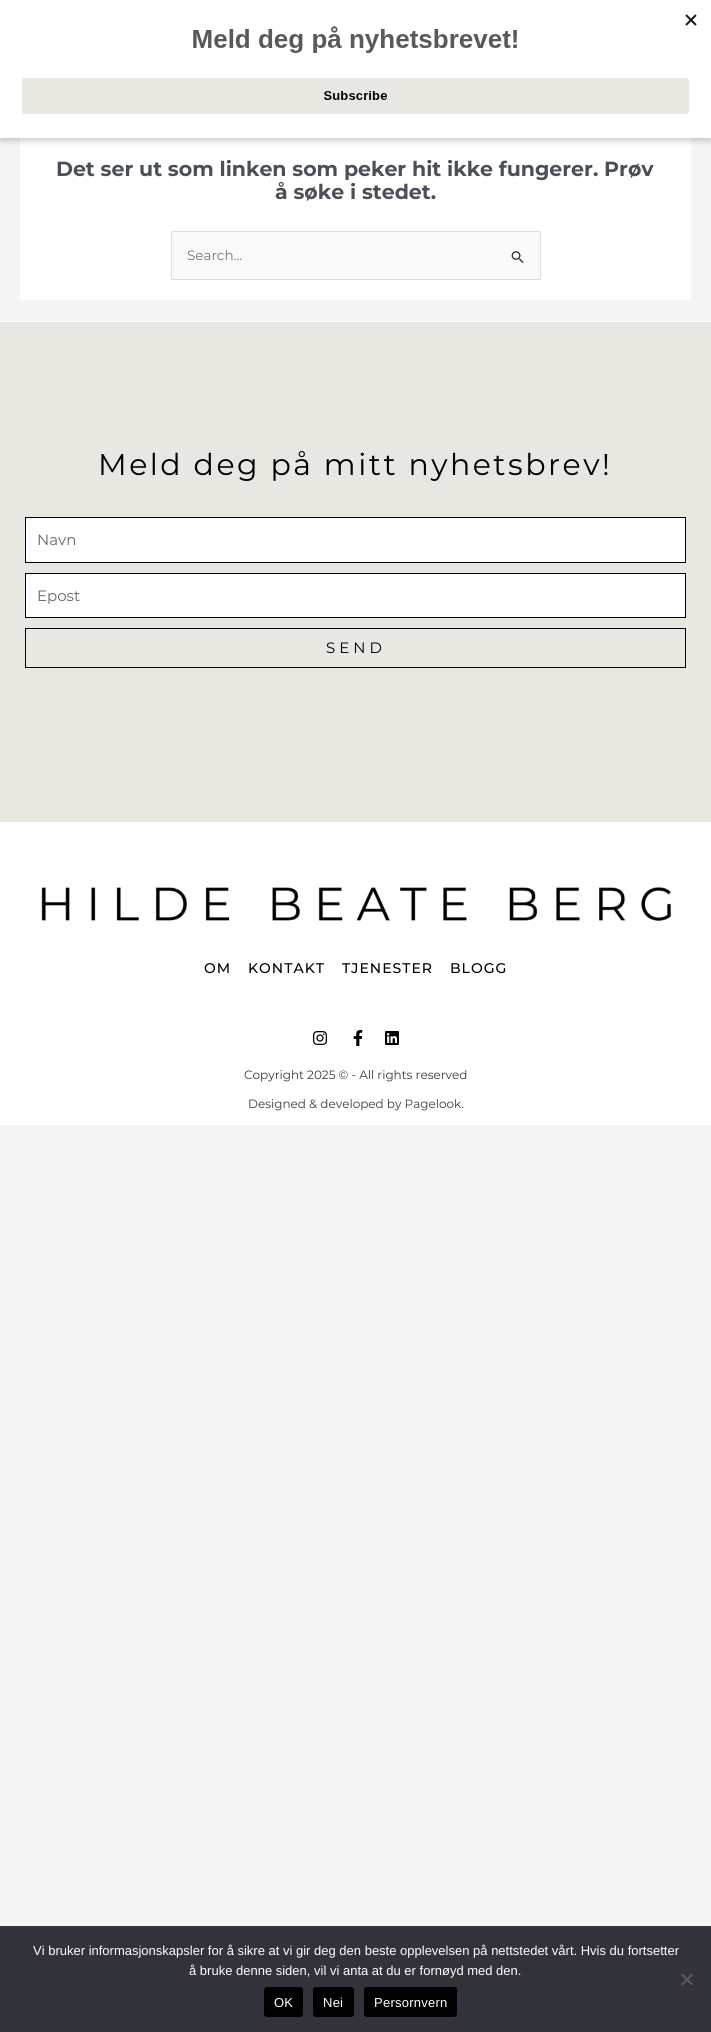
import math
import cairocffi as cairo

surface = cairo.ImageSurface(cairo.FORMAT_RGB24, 711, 2032)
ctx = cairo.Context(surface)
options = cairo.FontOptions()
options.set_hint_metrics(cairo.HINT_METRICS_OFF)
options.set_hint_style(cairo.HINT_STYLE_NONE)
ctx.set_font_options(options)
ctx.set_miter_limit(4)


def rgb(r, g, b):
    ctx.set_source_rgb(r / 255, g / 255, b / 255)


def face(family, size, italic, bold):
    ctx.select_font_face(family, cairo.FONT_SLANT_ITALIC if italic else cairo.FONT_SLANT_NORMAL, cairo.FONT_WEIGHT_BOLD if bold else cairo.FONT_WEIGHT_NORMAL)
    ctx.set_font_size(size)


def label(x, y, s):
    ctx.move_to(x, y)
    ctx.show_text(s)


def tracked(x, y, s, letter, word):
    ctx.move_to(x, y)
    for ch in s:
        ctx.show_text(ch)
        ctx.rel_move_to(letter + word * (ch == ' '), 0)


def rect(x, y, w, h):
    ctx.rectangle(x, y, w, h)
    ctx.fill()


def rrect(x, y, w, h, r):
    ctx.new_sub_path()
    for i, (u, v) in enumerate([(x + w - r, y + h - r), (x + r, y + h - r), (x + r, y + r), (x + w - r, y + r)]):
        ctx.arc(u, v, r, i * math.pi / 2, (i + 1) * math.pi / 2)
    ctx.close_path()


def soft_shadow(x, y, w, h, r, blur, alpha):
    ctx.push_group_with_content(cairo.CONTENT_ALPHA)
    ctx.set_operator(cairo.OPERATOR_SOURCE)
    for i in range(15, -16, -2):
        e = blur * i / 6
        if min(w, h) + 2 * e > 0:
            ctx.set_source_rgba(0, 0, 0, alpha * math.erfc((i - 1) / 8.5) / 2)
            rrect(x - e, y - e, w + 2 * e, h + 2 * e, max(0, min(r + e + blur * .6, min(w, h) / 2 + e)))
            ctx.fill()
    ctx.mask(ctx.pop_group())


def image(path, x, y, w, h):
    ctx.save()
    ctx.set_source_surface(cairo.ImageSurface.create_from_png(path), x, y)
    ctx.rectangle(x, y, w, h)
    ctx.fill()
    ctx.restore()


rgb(245, 245, 245)
ctx.paint()
rgb(255, 255, 255)
rect(20, 138, 671, 162)
rgb(0, 0, 0)
soft_shadow(0, 3, 711, 138, 0, 3, 0.2)
rgb(255, 255, 255)
rect(0, 0, 711, 138)
image('image0.png', 22, 14, 675, 100)
face('Montserrat', 20.5, 0, 1)
rgb(75, 79, 88)
label(56, 176, 'Det ser ut som linken som peker hit ikke fungerer. Prøv')
label(275, 199, 'å søke i stedet.')
rgb(250, 250, 250)
rrect(171.5, 231.5, 369, 48, 1.5)
ctx.fill_preserve()
rgb(221, 221, 221)
ctx.set_line_width(1)
ctx.stroke()
face('Montserrat', 13.5, 0, 0)
rgb(117, 117, 117)
label(187, 260, 'Search...')
image('image1.png', 511, 251, 13, 12)
rgb(232, 231, 225)
rect(0, 322, 711, 500)
rgb(255, 255, 255)
rect(0, 321, 711, 1)
face('Montserrat', 30, 0, 0)
rgb(0, 0, 0)
tracked(98, 475, 'Meld deg på mitt nyhetsbrev!', 2.5, 0)
rgb(255, 255, 255)
ctx.rectangle(25.5, 517.5, 660, 45)
ctx.fill_preserve()
rgb(0, 0, 0)
ctx.stroke()
face('Montserrat', 15, 0, 0)
rgb(102, 102, 102)
label(37, 545, 'Navn')
rgb(255, 255, 255)
ctx.rectangle(25.5, 573.5, 660, 44)
ctx.fill_preserve()
rgb(0, 0, 0)
ctx.stroke()
rgb(102, 102, 102)
label(37, 601, 'Epost')
ctx.rectangle(25.5, 628.5, 660, 39)
rgb(2, 1, 1)
ctx.stroke()
rgb(0, 0, 0)
tracked(326, 653, 'SEND', 4, 0)
rgb(255, 255, 255)
rect(0, 822, 711, 224)
image('image2.png', 41, 887, 631, 35)
face('Montserrat Medium', 14, 0, 0)
rgb(0, 0, 0)
tracked(204, 973, 'OM', 1, 0)
tracked(248, 973, 'KONTAKT', 1, 0)
tracked(342, 973, 'TJENESTER', 1, 0)
tracked(450, 973, 'BLOGG', 1, 0)
image('image3.png', 313, 1031, 14, 14)
image('image4.png', 353, 1030, 10, 16)
image('image5.png', 385, 1031, 14, 14)
rgb(255, 255, 255)
rect(0, 1046, 711, 79)
face('Montserrat', 12, 0, 0)
rgb(58, 58, 58)
label(244, 1079, 'Copyright 2025 © - All rights reserved')
label(248, 1108, 'Designed & developed by Pagelook.')
rgb(50, 50, 58)
rect(0, 1926, 711, 106)
face('Liberation Sans', 13, 0, 0)
rgb(255, 255, 255)
label(33, 1955, 'Vi bruker informasjonskapsler for å sikre at vi gir deg den beste opplevelsen på nettstedet vårt. Hvis du fortsetter')
label(189, 1975, 'å bruke denne siden, vil vi anta at du er fornøyd med den.')
rgb(89, 89, 93)
ctx.new_path()
ctx.move_to(691.5, 1973.5)
ctx.line_to(693, 1975)
ctx.line_to(682.5, 1985.5)
ctx.line_to(681, 1984)
ctx.close_path()
ctx.fill()
ctx.new_path()
ctx.move_to(681, 1975)
ctx.line_to(682.5, 1973.5)
ctx.line_to(693, 1984)
ctx.line_to(691.5, 1985.5)
ctx.close_path()
ctx.fill()
rgb(0, 0, 0)
rrect(264, 1987, 39, 30, 3)
ctx.fill()
rgb(255, 255, 255)
tracked(274, 2007, 'OK', 0.25, 0)
rgb(0, 0, 0)
rrect(313, 1987, 41, 30, 3)
ctx.fill()
rgb(255, 255, 255)
tracked(323, 2007, 'Nei', 0.25, 0)
rgb(0, 0, 0)
rrect(364, 1987, 93, 30, 3)
ctx.fill()
rgb(255, 255, 255)
tracked(374, 2007, 'Persornvern', 0.25, 0)
surface.write_to_png('render.png')
